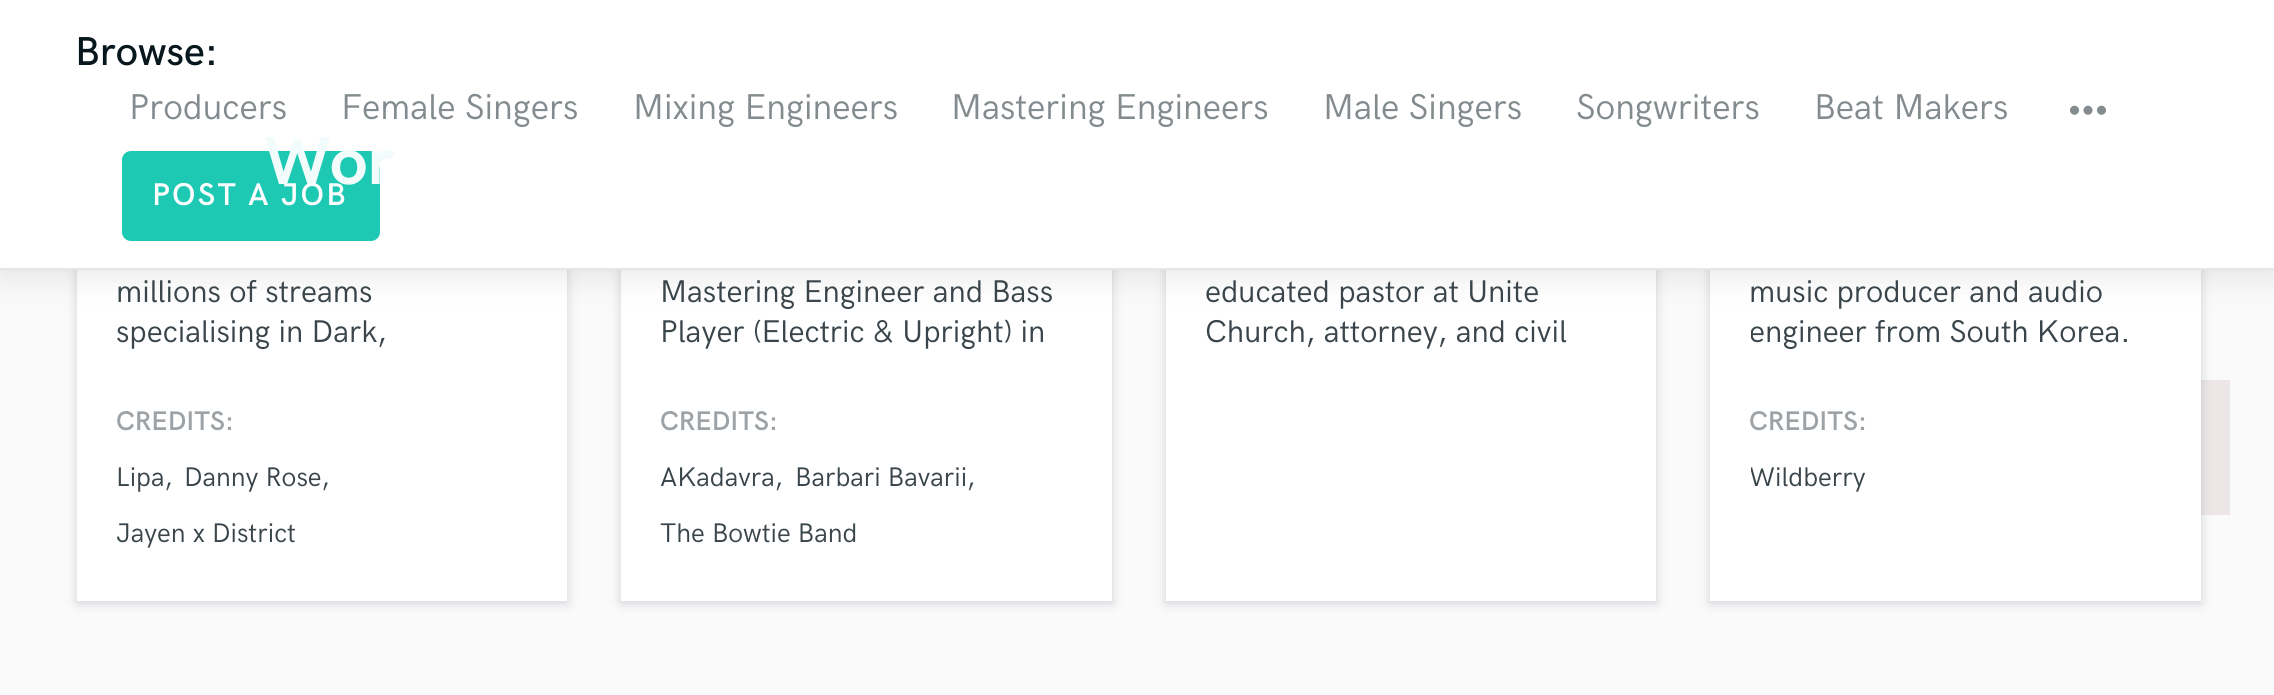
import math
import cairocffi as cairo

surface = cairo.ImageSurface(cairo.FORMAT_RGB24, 2274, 695)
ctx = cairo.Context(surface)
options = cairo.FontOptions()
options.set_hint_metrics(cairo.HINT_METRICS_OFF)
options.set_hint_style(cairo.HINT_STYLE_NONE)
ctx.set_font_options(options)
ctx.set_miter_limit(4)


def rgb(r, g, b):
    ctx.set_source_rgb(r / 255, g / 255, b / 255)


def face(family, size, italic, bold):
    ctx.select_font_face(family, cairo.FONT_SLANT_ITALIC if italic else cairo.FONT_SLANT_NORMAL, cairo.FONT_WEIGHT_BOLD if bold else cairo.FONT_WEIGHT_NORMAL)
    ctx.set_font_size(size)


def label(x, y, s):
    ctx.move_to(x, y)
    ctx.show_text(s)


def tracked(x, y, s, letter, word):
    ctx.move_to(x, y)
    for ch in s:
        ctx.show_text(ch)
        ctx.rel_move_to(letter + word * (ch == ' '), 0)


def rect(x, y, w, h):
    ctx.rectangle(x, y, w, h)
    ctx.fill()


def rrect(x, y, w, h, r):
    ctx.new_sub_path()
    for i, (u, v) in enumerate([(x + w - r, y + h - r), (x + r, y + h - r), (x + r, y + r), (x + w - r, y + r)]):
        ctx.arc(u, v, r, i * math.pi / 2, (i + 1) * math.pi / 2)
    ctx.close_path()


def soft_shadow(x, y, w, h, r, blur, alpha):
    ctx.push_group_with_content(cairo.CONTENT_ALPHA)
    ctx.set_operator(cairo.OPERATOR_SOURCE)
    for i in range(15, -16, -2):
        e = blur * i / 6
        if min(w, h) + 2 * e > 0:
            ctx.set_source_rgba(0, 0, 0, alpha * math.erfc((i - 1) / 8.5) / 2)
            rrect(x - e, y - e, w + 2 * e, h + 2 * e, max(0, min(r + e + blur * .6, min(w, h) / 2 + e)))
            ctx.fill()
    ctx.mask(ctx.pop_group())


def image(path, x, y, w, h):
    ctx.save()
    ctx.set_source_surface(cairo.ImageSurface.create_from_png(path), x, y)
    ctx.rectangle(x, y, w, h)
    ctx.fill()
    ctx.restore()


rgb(250, 250, 250)
ctx.paint()
rgb(33, 41, 73)
soft_shadow(77, -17, 490, 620, 0, 5.5, 0.2)
rgb(255, 255, 255)
rect(77, 270, 490, 331)
rgb(33, 41, 73)
soft_shadow(621, -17, 491, 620, 0, 5.5, 0.2)
rgb(255, 255, 255)
rect(621, 270, 491, 331)
rgb(33, 41, 73)
soft_shadow(1166, -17, 490, 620, 0, 5.5, 0.2)
rgb(255, 255, 255)
rect(1166, 270, 490, 331)
rgb(236, 231, 230)
rect(2201, 380, 29, 135)
rgb(33, 41, 73)
soft_shadow(1710, -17, 491, 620, 0, 5.5, 0.2)
rgb(255, 255, 255)
rect(1710, 270, 491, 331)
rgb(0, 0, 0)
soft_shadow(0, 5, 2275, 270, 0, 17, 0.1)
rgb(255, 255, 255)
rect(0, 0, 2274, 268)
rgb(230, 230, 230)
rect(0, 268, 2274, 2)
face('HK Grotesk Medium', 40.5, 0, 0)
rgb(7, 23, 29)
label(75, 65, 'Browse:')
face('HK Grotesk', 36, 0, 0)
rgb(131, 139, 142)
label(129, 119, 'Producers')
label(341, 119, 'Female Singers')
label(633, 119, 'Mixing Engineers')
label(951, 119, 'Mastering Engineers')
label(1323, 119, 'Male Singers')
label(1576, 119, 'Songwriters')
label(1814, 119, 'Beat Makers')
image('image0.png', 2070, 105, 36, 10)
rgb(30, 201, 180)
rrect(124.5, 153.5, 253, 85, 6.5)
ctx.fill_preserve()
ctx.set_line_width(5)
ctx.stroke()
face('HK Grotesk SemiBold', 31.5, 0, 0)
rgb(255, 255, 255)
tracked(152, 205, 'POST A JOB', 2.25, 0)
face('HK Grotesk', 68, 0, 1)
rgb(242, 252, 251)
tracked(264, 184, 'Wor', -0.5, 0)
face('HK Grotesk', 31.5, 0, 0)
rgb(57, 69, 74)
label(116, 302, 'millions of streams')
label(116, 342, 'specialising in Dark,')
face('HK Grotesk SemiBold', 27, 0, 0)
rgb(156, 162, 165)
label(116, 430, 'CREDITS:')
face('HK Grotesk', 27, 0, 0)
rgb(57, 69, 74)
label(116, 486, 'Lipa,')
label(184, 486, 'Danny Rose,')
label(116, 542, 'Jayen x District')
face('HK Grotesk', 31.5, 0, 0)
label(660, 302, 'Mastering Engineer and Bass')
label(660, 342, 'Player (Electric & Upright) in')
face('HK Grotesk SemiBold', 27, 0, 0)
rgb(156, 162, 165)
label(660, 430, 'CREDITS:')
face('HK Grotesk', 27, 0, 0)
rgb(57, 69, 74)
label(660, 486, 'AKadavra,')
label(795, 486, 'Barbari Bavarii,')
label(660, 542, 'The Bowtie Band')
face('HK Grotesk', 31.5, 0, 0)
label(1205, 302, 'educated pastor at Unite')
label(1205, 342, 'Church, attorney, and civil')
label(1749, 302, 'music producer and audio')
ctx.save()
ctx.rectangle(1751, 232, 409, 121)
ctx.clip()
label(1749, 342, 'engineer from South Korea.')
ctx.restore()
face('HK Grotesk SemiBold', 27, 0, 0)
rgb(156, 162, 165)
label(1749, 430, 'CREDITS:')
ctx.save()
ctx.rectangle(1751, 450, 409, 108)
ctx.clip()
face('HK Grotesk', 27, 0, 0)
rgb(57, 69, 74)
label(1749, 486, 'Wildberry')
ctx.restore()
surface.write_to_png('render.png')
